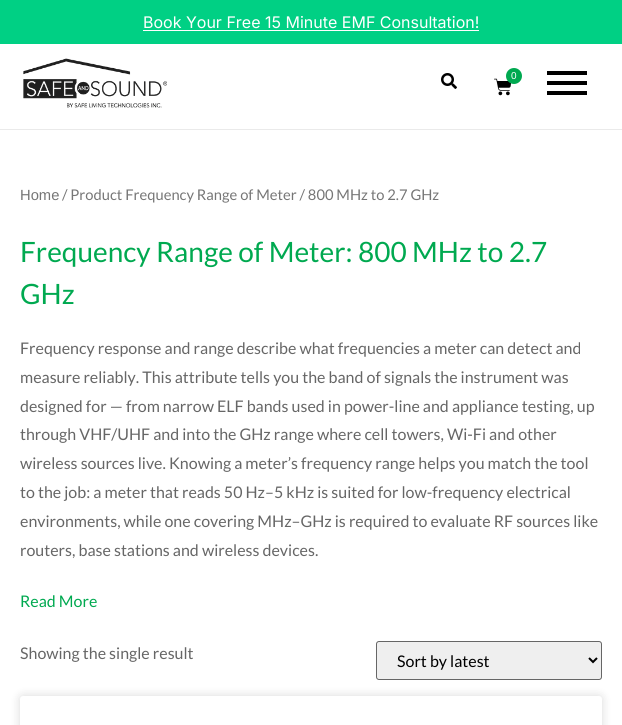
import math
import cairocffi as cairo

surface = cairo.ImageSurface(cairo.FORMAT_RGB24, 622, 725)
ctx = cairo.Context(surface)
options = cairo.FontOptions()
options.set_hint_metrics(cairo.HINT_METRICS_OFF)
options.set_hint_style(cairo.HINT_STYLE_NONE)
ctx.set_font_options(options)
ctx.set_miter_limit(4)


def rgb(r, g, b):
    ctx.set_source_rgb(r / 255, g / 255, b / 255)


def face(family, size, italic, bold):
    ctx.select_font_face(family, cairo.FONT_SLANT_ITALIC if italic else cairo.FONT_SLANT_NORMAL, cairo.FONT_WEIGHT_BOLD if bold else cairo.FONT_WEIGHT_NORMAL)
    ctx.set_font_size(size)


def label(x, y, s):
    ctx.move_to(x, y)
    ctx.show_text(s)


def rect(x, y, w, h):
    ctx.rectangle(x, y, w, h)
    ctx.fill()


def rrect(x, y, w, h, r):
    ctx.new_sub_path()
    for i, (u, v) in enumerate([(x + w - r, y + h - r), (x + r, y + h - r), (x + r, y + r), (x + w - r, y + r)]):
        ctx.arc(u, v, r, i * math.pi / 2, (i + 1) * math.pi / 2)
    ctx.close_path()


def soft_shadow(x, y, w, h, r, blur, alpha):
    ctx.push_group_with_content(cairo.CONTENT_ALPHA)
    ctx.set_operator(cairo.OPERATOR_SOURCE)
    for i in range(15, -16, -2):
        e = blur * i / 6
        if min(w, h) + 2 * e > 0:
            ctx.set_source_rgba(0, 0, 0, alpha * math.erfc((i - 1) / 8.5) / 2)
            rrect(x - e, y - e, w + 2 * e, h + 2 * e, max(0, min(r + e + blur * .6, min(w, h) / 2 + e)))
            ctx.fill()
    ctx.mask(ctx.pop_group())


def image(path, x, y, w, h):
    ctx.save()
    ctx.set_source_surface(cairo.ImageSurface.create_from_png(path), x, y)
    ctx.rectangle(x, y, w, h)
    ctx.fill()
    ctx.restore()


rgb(255, 255, 255)
ctx.paint()
rgb(0, 208, 132)
rect(0, 0, 622, 44)
face('Inter', 16, 0, 0)
rgb(255, 255, 255)
label(143, 28, 'Book Your Free 15 Minute EMF Consultation!')
rect(143, 30, 336, 1)
rgb(234, 234, 234)
rect(0, 129, 622, 1)
image('image0.png', 23, 58, 144, 50)
image('image1.png', 441, 73, 16, 16)
image('image2.png', 494, 78, 17, 18)
rgb(0, 169, 80)
ctx.arc(514, 76, 8, 0, 2 * math.pi)
ctx.fill()
face('Liberation Sans', 10, 0, 0)
rgb(255, 255, 255)
label(511, 79, '0')
rgb(0, 0, 0)
rect(547, 71, 40, 4)
rect(547, 81, 40, 4)
rect(547, 91, 40, 4)
face('Liberation Sans', 14.75, 0, 0)
rgb(118, 118, 118)
label(20, 200, 'Home')
face('Lato', 14.75, 0, 0)
label(62, 200, '/ Product Frequency Range of Meter / 800 MHz to 2.7 GHz')
face('Lato', 28, 0, 0)
rgb(0, 169, 80)
label(20, 262, 'Frequency Range of Meter: 800 MHz to 2.7')
label(20, 304, 'GHz')
face('Lato', 16, 0, 0)
rgb(102, 102, 102)
label(20, 354, 'Frequency response and range describe what frequencies a meter can detect and')
label(20, 383, 'measure reliably. This attribute tells you the band of signals the instrument was')
label(20, 412, 'designed for — from narrow ELF bands used in power-line and appliance testing, up')
label(20, 440, 'through VHF/UHF and into the GHz range where cell towers, Wi-Fi and other')
label(20, 469, 'wireless sources live. Knowing a meter’s frequency range helps you match the tool')
label(20, 498, 'to the job: a meter that reads 50 Hz–5 kHz is suited for low-frequency electrical')
label(20, 527, 'environments, while one covering MHz–GHz is required to evaluate RF sources like')
label(20, 556, 'routers, base stations and wireless devices.')
rgb(0, 169, 80)
label(20, 607, 'Read More')
rgb(102, 102, 102)
label(20, 659, 'Showing the single result')
rgb(239, 239, 239)
rrect(376.5, 641.5, 225, 38, 2.5)
ctx.fill_preserve()
rgb(102, 102, 102)
ctx.set_line_width(1)
ctx.stroke()
ctx.new_path()
ctx.move_to(589, 658)
ctx.line_to(593, 662)
ctx.line_to(597, 658)
rgb(0, 0, 0)
ctx.set_line_width(2)
ctx.stroke()
label(397, 667, 'Sort by latest')
rgb(0, 0, 0)
soft_shadow(20, 696, 582, 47, 3, 5, 0.15)
rgb(255, 255, 255)
rrect(20, 696, 582, 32, 3)
ctx.fill()
surface.write_to_png('render.png')
